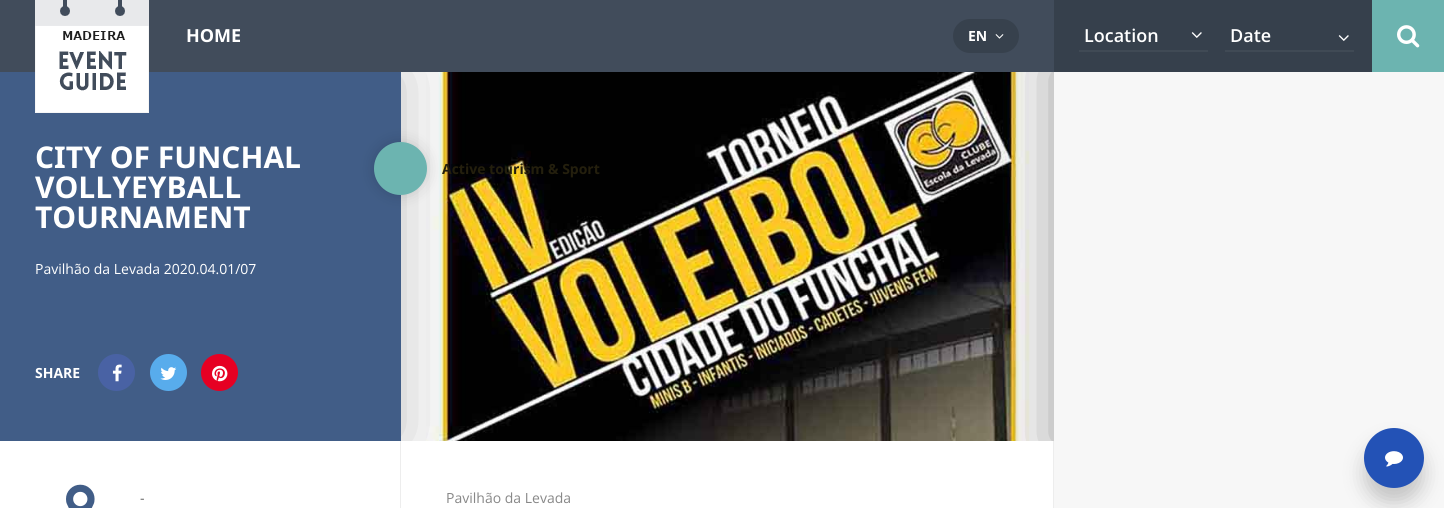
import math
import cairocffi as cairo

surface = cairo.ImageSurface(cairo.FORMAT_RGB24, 1444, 508)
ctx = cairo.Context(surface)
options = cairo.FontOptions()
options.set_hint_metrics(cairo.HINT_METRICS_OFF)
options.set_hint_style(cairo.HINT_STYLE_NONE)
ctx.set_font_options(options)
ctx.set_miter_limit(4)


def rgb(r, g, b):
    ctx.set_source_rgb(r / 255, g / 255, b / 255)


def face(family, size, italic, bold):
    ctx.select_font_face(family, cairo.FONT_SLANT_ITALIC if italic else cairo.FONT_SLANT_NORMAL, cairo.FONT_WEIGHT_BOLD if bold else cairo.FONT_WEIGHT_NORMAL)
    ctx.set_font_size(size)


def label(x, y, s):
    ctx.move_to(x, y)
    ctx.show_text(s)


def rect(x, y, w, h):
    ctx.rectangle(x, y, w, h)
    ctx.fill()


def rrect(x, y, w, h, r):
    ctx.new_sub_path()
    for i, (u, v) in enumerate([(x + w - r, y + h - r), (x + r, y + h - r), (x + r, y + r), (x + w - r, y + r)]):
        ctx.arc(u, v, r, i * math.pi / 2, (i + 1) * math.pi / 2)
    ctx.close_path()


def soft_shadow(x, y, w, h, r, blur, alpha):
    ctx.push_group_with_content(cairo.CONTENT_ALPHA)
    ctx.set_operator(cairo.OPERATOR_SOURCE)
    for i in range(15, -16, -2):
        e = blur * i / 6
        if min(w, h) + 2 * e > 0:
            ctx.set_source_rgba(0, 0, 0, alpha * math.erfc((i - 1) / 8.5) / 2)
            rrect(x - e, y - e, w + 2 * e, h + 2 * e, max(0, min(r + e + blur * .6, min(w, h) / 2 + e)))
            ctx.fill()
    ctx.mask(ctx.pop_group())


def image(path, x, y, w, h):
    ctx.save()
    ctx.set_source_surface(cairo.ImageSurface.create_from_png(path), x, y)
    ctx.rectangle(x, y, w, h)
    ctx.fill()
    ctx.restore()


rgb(247, 247, 247)
ctx.paint()
image('image5.png', 401, 72, 653, 369)
rgb(255, 255, 255)
rect(401, 441, 652, 67)
rect(0, 441, 400, 67)
image('image8.png', 66, 484, 29, 24)
rgb(237, 237, 237)
rect(400, 441, 1, 67)
ctx.save()
ctx.rectangle(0, 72, 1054, 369)
ctx.clip()
rgb(0, 0, 0)
soft_shadow(0, 72, 401, 369, 0, 35, 0.25)
ctx.restore()
rgb(54, 64, 76)
rect(1054, 0, 318, 72)
rgb(64, 74, 85)
rect(1079, 50, 129, 2)
rgb(237, 237, 237)
rect(1053, 441, 1, 67)
ctx.save()
ctx.rectangle(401, 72, 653, 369)
ctx.clip()
rgb(0, 0, 0)
soft_shadow(1054, 72, 20, 369, 0, 35, 0.4)
ctx.restore()
rgb(65, 76, 91)
rect(0, 0, 1054, 72)
rgb(65, 93, 135)
rect(0, 72, 401, 369)
image('image0.png', 35, 0, 114, 113)
face('Noto Sans', 18, 0, 1)
rgb(255, 255, 255)
label(186, 42, 'HOME')
rgb(55, 65, 77)
rrect(953, 19, 66, 34, 17)
ctx.fill()
face('Noto Sans', 14, 0, 1)
rgb(255, 255, 255)
label(968, 41, 'EN')
image('image1.png', 995, 34, 9, 5)
face('Noto Sans', 30, 0, 1)
label(35, 168, 'CITY OF FUNCHAL')
label(35, 198, 'VOLLYEYBALL')
label(35, 228, 'TOURNAMENT')
rgb(0, 0, 0)
soft_shadow(374, 142, 53, 53, 26.5, 7.5, 0.15)
rgb(108, 180, 176)
ctx.arc(400.5, 168.5, 26.5, 0, 2 * math.pi)
ctx.fill()
face('Noto Sans', 14, 0, 1)
rgb(36, 31, 13)
label(442, 174, 'Active tourism & Sport')
face('Open Sans', 14, 0, 0)
rgb(255, 255, 255)
label(35, 274, 'Pavilhão da Levada 2020.04.01/07')
face('Noto Sans', 14, 0, 1)
label(35, 378, 'SHARE')
rgb(73, 98, 164)
ctx.new_path()
ctx.arc(116.5, 372.5, 18.5, 0, 2 * math.pi)
ctx.fill()
image('image2.png', 112, 364, 10, 18)
rgb(88, 172, 236)
ctx.arc(168.5, 372.5, 18.5, 0, 2 * math.pi)
ctx.fill()
image('image3.png', 160, 367, 17, 13)
rgb(230, 0, 35)
ctx.arc(219.5, 372.5, 18.5, 0, 2 * math.pi)
ctx.fill()
image('image4.png', 212, 365, 16, 17)
face('Open Sans SemiBold', 18, 0, 0)
rgb(255, 255, 255)
label(1084, 42, 'Location')
image('image6.png', 1191, 32, 11, 6)
rgb(64, 74, 85)
rect(1225, 50, 129, 2)
rgb(255, 255, 255)
label(1230, 42, 'Date')
image('image6.png', 1338, 35, 11, 6)
rgb(108, 180, 176)
rect(1372, 0, 72, 72)
image('image7.png', 1397, 25, 23, 23)
face('Open Sans', 14, 0, 0)
rgb(102, 102, 102)
label(140, 503, '-')
rgb(136, 136, 136)
label(446, 503, 'Pavilhão da Levada')
rgb(0, 0, 0)
soft_shadow(1364, 443, 60, 60, 30, 10, 0.2)
rgb(35, 82, 182)
ctx.arc(1394, 458, 30, 0, 2 * math.pi)
ctx.fill()
image('image9.png', 1385, 451, 18, 16)
surface.write_to_png('render.png')
